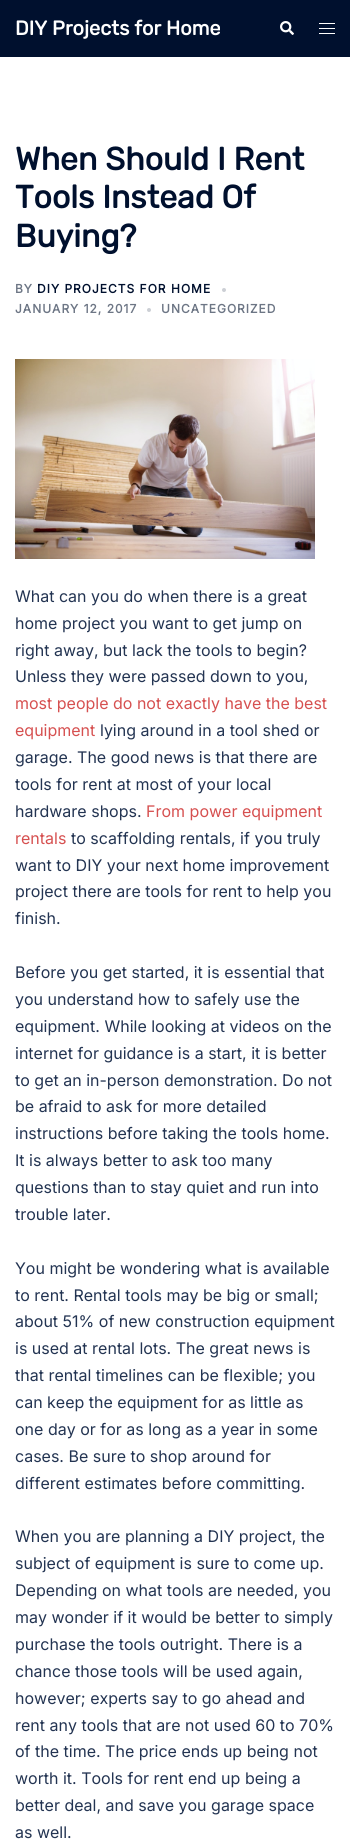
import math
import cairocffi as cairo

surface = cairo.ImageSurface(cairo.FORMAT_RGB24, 350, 1843)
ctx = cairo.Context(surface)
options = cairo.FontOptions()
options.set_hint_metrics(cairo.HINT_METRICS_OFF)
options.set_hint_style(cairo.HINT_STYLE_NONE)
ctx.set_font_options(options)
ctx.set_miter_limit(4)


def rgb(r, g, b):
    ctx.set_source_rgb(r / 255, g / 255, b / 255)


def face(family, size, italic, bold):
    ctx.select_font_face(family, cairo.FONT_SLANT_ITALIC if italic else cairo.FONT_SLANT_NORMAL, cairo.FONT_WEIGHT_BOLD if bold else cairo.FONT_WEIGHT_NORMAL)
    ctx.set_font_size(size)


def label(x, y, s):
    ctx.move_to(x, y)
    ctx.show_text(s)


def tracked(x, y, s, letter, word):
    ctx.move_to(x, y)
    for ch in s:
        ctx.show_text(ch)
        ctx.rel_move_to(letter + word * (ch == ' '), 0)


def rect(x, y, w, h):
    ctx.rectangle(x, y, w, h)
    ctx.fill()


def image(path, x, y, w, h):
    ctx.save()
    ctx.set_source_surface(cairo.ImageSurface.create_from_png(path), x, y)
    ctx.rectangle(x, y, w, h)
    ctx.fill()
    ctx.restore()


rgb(255, 255, 255)
ctx.paint()
rgb(0, 16, 46)
rect(0, 0, 350, 57)
face('Rubik', 20, 0, 1)
rgb(255, 255, 255)
label(15, 35, 'DIY Projects for Home')
image('image0.png', 280, 21, 14, 14)
rect(319, 23, 16, 1)
rect(319, 28, 16, 1)
rect(319, 33, 16, 1)
face('Rubik', 32, 0, 1)
rgb(0, 16, 46)
label(15, 170, 'When Should I Rent')
label(15, 208, 'Tools Instead Of')
label(15, 247, 'Buying?')
face('Inter', 12, 0, 1)
rgb(109, 118, 133)
tracked(15, 293, 'BY', 1, 0)
rgb(0, 16, 46)
tracked(37, 293, 'DIY PROJECTS FOR HOME', 1, 0)
rgb(204, 207, 213)
ctx.new_path()
ctx.arc(224, 290, 2, 0, 2 * math.pi)
ctx.fill()
rgb(109, 118, 133)
tracked(15, 313, 'JANUARY 12, 2017', 1, 0)
rgb(204, 207, 213)
ctx.new_path()
ctx.arc(149, 310, 2, 0, 2 * math.pi)
ctx.fill()
rgb(109, 118, 133)
tracked(161, 313, 'UNCATEGORIZED', 1, 0)
image('image1.png', 15, 359, 300, 200)
face('Inter', 16, 0, 0)
rgb(35, 52, 82)
label(15, 602, 'What can you do when there is a great')
label(15, 629, 'home project you want to get jump on')
label(15, 656, 'right away, but lack the tools to begin?')
label(15, 682, 'Unless they were passed down to you,')
rgb(214, 80, 80)
label(15, 709, 'most people do not exactly have the best')
label(15, 736, 'equipment')
rgb(35, 52, 82)
label(100, 736, 'lying around in a tool shed or')
label(15, 763, 'garage. The good news is that there are')
label(15, 790, 'tools for rent at most of your local')
label(15, 817, 'hardware shops.')
rgb(214, 80, 80)
label(146, 817, 'From power equipment')
label(15, 844, 'rentals')
rgb(35, 52, 82)
label(71, 844, 'to scaffolding rentals, if you truly')
label(15, 871, 'want to DIY your next home improvement')
label(15, 897, 'project there are tools for rent to help you')
label(15, 924, 'finish.')
label(15, 978, 'Before you get started, it is essential that')
label(15, 1005, 'you understand how to safely use the')
label(15, 1032, 'equipment. While looking at videos on the')
label(15, 1059, 'internet for guidance is a start, it is better')
label(15, 1086, 'to get an in-person demonstration. Do not')
label(15, 1112, 'be afraid to ask for more detailed')
label(15, 1139, 'instructions before taking the tools home.')
label(15, 1166, 'It is always better to ask too many')
label(15, 1193, 'questions than to stay quiet and run into')
label(15, 1220, 'trouble later.')
label(15, 1274, 'You might be wondering what is available')
label(15, 1301, 'to rent. Rental tools may be big or small;')
label(15, 1327, 'about 51% of new construction equipment')
label(15, 1354, 'is used at rental lots. The great news is')
label(15, 1381, 'that rental timelines can be flexible; you')
label(15, 1408, 'can keep the equipment for as little as')
label(15, 1435, 'one day or for as long as a year in some')
label(15, 1462, 'cases. Be sure to shop around for')
label(15, 1489, 'different estimates before committing.')
label(15, 1542, 'When you are planning a DIY project, the')
label(15, 1569, 'subject of equipment is sure to come up.')
label(15, 1596, 'Depending on what tools are needed, you')
label(15, 1623, 'may wonder if it would be better to simply')
label(15, 1650, 'purchase the tools outright. There is a')
label(15, 1677, 'chance those tools will be used again,')
label(15, 1704, 'however; experts say to go ahead and')
label(15, 1731, 'rent any tools that are not used 60 to 70%')
label(15, 1757, 'of the time. The price ends up being not')
label(15, 1784, 'worth it. Tools for rent end up being a')
label(15, 1811, 'better deal, and save you garage space')
label(15, 1838, 'as well.')
surface.write_to_png('render.png')
